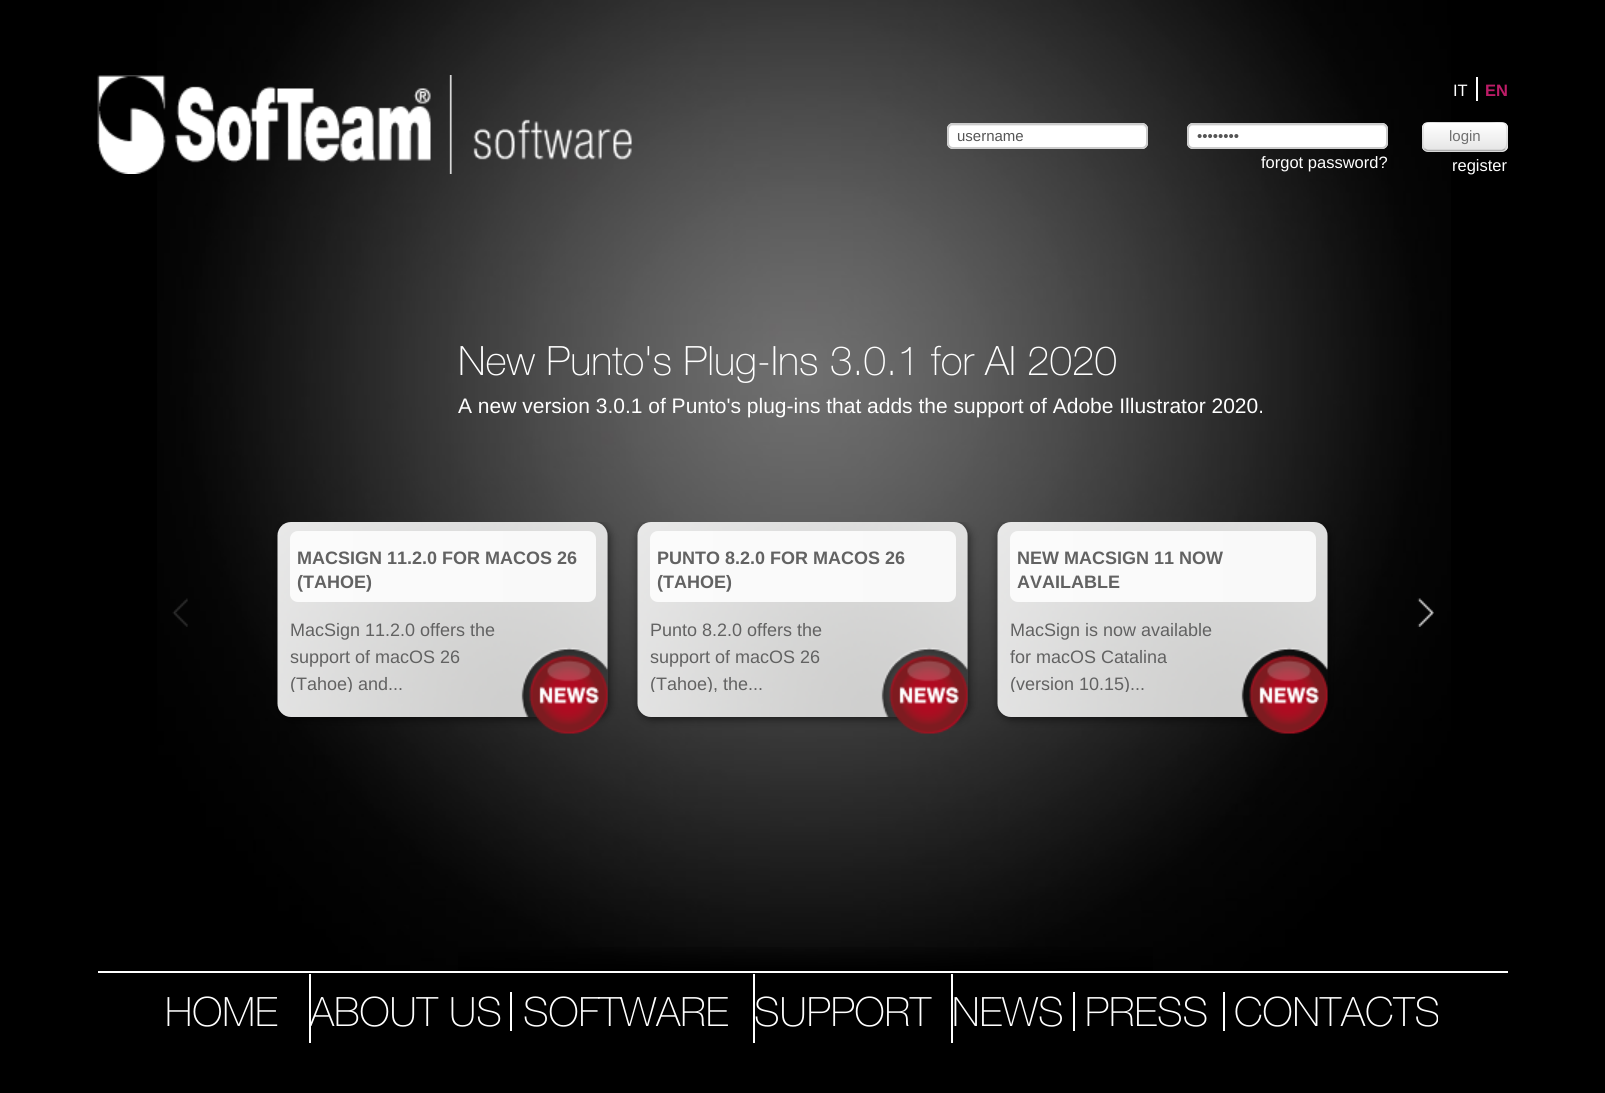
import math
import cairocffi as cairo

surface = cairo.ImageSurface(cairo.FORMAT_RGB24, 1605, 1093)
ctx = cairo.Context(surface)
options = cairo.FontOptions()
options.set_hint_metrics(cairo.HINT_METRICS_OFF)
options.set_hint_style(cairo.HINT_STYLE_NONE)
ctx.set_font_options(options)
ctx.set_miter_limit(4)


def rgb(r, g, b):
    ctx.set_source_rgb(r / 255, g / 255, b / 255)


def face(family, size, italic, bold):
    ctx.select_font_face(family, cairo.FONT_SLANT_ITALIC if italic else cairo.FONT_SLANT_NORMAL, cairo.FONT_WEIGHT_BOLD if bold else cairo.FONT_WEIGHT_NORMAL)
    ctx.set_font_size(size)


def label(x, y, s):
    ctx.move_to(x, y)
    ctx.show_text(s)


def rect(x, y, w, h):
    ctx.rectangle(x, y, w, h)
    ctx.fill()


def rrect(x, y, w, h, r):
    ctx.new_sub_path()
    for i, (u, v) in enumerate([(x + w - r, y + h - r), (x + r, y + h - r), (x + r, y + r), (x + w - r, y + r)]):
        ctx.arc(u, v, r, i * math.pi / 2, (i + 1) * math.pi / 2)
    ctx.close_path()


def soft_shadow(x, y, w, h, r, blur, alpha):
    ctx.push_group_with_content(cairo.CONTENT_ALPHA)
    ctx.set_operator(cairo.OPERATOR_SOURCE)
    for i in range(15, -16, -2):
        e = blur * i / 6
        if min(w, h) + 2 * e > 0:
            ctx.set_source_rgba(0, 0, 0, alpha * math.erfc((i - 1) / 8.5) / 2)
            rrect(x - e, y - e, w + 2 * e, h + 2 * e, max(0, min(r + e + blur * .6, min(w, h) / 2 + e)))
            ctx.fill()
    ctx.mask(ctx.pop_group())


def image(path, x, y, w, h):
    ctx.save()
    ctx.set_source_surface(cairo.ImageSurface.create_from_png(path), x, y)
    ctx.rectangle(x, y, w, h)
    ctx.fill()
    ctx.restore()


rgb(0, 0, 0)
ctx.paint()
image('image0.png', 157, 0, 1294, 971)
image('image1.png', 97, 75, 535, 99)
face('Liberation Sans', 16.5, 0, 0)
rgb(255, 255, 255)
label(1453, 96, 'IT')
rect(1476, 77, 2, 24)
face('Liberation Sans', 16.5, 0, 1)
rgb(189, 28, 103)
label(1485, 96, 'EN')
rgb(255, 255, 255)
rrect(947, 123, 201, 26, 6)
ctx.fill()
rgb(236, 236, 236)
ctx.new_path()
ctx.move_to(952, 126)
ctx.line_to(1142, 126)
ctx.curve_to(1144, 126, 1146, 128, 1146, 130)
ctx.curve_to(1146, 127, 1144, 125, 1141, 125)
ctx.line_to(953, 125)
ctx.curve_to(950, 125, 948, 127, 948, 130)
ctx.curve_to(948, 128, 950, 126, 952, 126)
ctx.close_path()
ctx.fill()
rrect(948, 124, 199, 24, 5)
rgb(204, 204, 204)
ctx.stroke()
face('Liberation Sans', 15, 0, 0)
rgb(85, 85, 85)
label(957, 141, 'username')
rgb(255, 255, 255)
rrect(1187, 123, 201, 26, 6)
ctx.fill()
rgb(236, 236, 236)
ctx.new_path()
ctx.move_to(1192, 126)
ctx.line_to(1382, 126)
ctx.curve_to(1384, 126, 1386, 128, 1386, 130)
ctx.curve_to(1386, 127, 1384, 125, 1381, 125)
ctx.line_to(1193, 125)
ctx.curve_to(1190, 125, 1188, 127, 1188, 130)
ctx.curve_to(1188, 128, 1190, 126, 1192, 126)
ctx.close_path()
ctx.fill()
rrect(1188, 124, 199, 24, 5)
rgb(204, 204, 204)
ctx.stroke()
rgb(85, 85, 85)
label(1197, 141, '••••••••')
face('Liberation Sans', 16.5, 0, 0)
rgb(255, 255, 255)
label(1261, 168, 'forgot password?')
rgb(230, 230, 230)
rrect(1422, 122, 86, 30, 6)
ctx.fill()
ctx.save()
rrect(1422, 122, 86, 30, 6)
ctx.clip()
gradient = cairo.LinearGradient(1465, 123, 1465, 150)
gradient.add_color_stop_rgba(0, 1, 1, 1, 1)
gradient.add_color_stop_rgba(1, 0.902, 0.902, 0.902, 1)
ctx.set_source(gradient)
rect(1422, 123, 86, 27)
ctx.restore()
rgb(255, 255, 255)
ctx.new_path()
ctx.move_to(1428, 124)
ctx.line_to(1502, 124)
ctx.curve_to(1504, 124, 1506, 127, 1506, 129)
ctx.curve_to(1506, 120, 1495, 123, 1489, 123)
ctx.line_to(1441, 123)
ctx.curve_to(1435, 123, 1424, 120, 1424, 129)
ctx.curve_to(1424, 127, 1426, 124, 1428, 124)
ctx.close_path()
ctx.fill()
ctx.new_path()
ctx.move_to(1505, 149)
ctx.line_to(1502, 150.5)
ctx.line_to(1427.5, 150.5)
ctx.line_to(1424.5, 149)
rgb(173, 173, 173)
ctx.set_line_width(1.5)
ctx.stroke()
ctx.new_path()
ctx.move_to(1424.5, 149)
ctx.curve_to(1421.5, 146.5, 1423, 140, 1423, 136.5)
ctx.curve_to(1423, 120, 1422.5, 122, 1440, 122)
ctx.line_to(1489, 122)
ctx.curve_to(1504.5, 122, 1507, 119.5, 1507, 133.5)
ctx.curve_to(1507, 137, 1508, 146, 1505, 149)
ctx.set_source_rgba(0, 0, 0, 0.1)
ctx.stroke()
face('Liberation Sans', 15, 0, 0)
rgb(111, 111, 111)
label(1449, 141, 'login')
face('Liberation Sans', 16.5, 0, 0)
rgb(255, 255, 255)
label(1452, 171, 'register')
face('Helvetica Neue Thin', 40.5, 0, 0)
label(458, 375, 'New Punto\'s Plug-Ins 3.0.1 for AI 2020')
face('Liberation Sans', 21, 0, 0)
label(458, 413, 'A new version 3.0.1 of Punto\'s plug-ins that adds the support of Adobe Illustrator 2020.')
image('image2.png', 172, 598, 16, 29)
ctx.save()
ctx.rectangle(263, 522, 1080, 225)
ctx.clip()
ctx.set_fill_rule(cairo.FILL_RULE_EVEN_ODD)
ctx.new_path()
ctx.move_to(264, 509)
ctx.line_to(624, 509)
ctx.line_to(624, 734)
ctx.line_to(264, 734)
ctx.close_path()
ctx.move_to(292, 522)
ctx.line_to(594, 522)
ctx.curve_to(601.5, 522, 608, 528.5, 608, 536)
ctx.line_to(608, 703)
ctx.curve_to(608, 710.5, 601.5, 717, 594, 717)
ctx.line_to(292, 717)
ctx.curve_to(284.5, 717, 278, 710.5, 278, 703)
ctx.line_to(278, 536)
ctx.curve_to(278, 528.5, 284.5, 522, 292, 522)
ctx.close_path()
ctx.clip()
rgb(0, 0, 0)
soft_shadow(279, 524, 330, 195, 14, 4.5, 0.6)
ctx.restore()
image('image3.png', 277, 522, 331, 195)
gradient = cairo.LinearGradient(290, 566, 596, 566)
gradient.add_color_stop_rgba(0, 0.984, 0.984, 0.984, 1)
gradient.add_color_stop_rgba(1, 0.976, 0.976, 0.976, 1)
ctx.set_source(gradient)
rrect(290, 531, 306, 71, 8)
ctx.fill()
face('Liberation Sans', 18, 0, 1)
rgb(98, 98, 98)
label(297, 564, 'MACSIGN 11.2.0 FOR MACOS 26')
label(297, 588, '(TAHOE)')
face('Liberation Sans', 18, 0, 0)
label(290, 636, 'MacSign 11.2.0 offers the')
label(290, 663, 'support of macOS 26')
ctx.save()
ctx.rectangle(290, 617, 306, 75)
ctx.clip()
label(290, 690, '(Tahoe) and...')
ctx.restore()
image('image4.png', 529, 655, 79, 79)
ctx.save()
ctx.rectangle(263, 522, 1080, 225)
ctx.clip()
ctx.set_fill_rule(cairo.FILL_RULE_EVEN_ODD)
ctx.new_path()
ctx.move_to(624, 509)
ctx.line_to(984, 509)
ctx.line_to(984, 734)
ctx.line_to(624, 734)
ctx.close_path()
ctx.move_to(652, 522)
ctx.line_to(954, 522)
ctx.curve_to(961.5, 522, 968, 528.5, 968, 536)
ctx.line_to(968, 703)
ctx.curve_to(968, 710.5, 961.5, 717, 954, 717)
ctx.line_to(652, 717)
ctx.curve_to(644.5, 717, 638, 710.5, 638, 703)
ctx.line_to(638, 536)
ctx.curve_to(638, 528.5, 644.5, 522, 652, 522)
ctx.close_path()
ctx.clip()
rgb(0, 0, 0)
soft_shadow(639, 524, 330, 195, 14, 4.5, 0.6)
ctx.restore()
image('image5.png', 637, 522, 331, 195)
gradient = cairo.LinearGradient(650, 566, 956, 566)
gradient.add_color_stop_rgba(0, 0.984, 0.984, 0.984, 1)
gradient.add_color_stop_rgba(1, 0.976, 0.976, 0.976, 1)
ctx.set_source(gradient)
rrect(650, 531, 306, 71, 8)
ctx.fill()
face('Liberation Sans', 18, 0, 1)
rgb(98, 98, 98)
label(657, 564, 'PUNTO 8.2.0 FOR MACOS 26')
label(657, 588, '(TAHOE)')
face('Liberation Sans', 18, 0, 0)
label(650, 636, 'Punto 8.2.0 offers the')
label(650, 663, 'support of macOS 26')
ctx.save()
ctx.rectangle(650, 617, 306, 75)
ctx.clip()
label(650, 690, '(Tahoe), the...')
ctx.restore()
image('image6.png', 889, 655, 79, 79)
ctx.save()
ctx.rectangle(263, 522, 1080, 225)
ctx.clip()
ctx.set_fill_rule(cairo.FILL_RULE_EVEN_ODD)
ctx.new_path()
ctx.move_to(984, 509)
ctx.line_to(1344, 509)
ctx.line_to(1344, 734)
ctx.line_to(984, 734)
ctx.close_path()
ctx.move_to(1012, 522)
ctx.line_to(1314, 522)
ctx.curve_to(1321.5, 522, 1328, 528.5, 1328, 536)
ctx.line_to(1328, 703)
ctx.curve_to(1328, 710.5, 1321.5, 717, 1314, 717)
ctx.line_to(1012, 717)
ctx.curve_to(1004.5, 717, 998, 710.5, 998, 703)
ctx.line_to(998, 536)
ctx.curve_to(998, 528.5, 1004.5, 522, 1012, 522)
ctx.close_path()
ctx.clip()
rgb(0, 0, 0)
soft_shadow(999, 524, 330, 195, 14, 4.5, 0.6)
ctx.restore()
image('image7.png', 997, 522, 331, 195)
gradient = cairo.LinearGradient(1010, 566, 1316, 566)
gradient.add_color_stop_rgba(0, 0.984, 0.984, 0.984, 1)
gradient.add_color_stop_rgba(1, 0.976, 0.976, 0.976, 1)
ctx.set_source(gradient)
rrect(1010, 531, 306, 71, 8)
ctx.fill()
face('Liberation Sans', 18, 0, 1)
rgb(98, 98, 98)
label(1017, 564, 'NEW MACSIGN 11 NOW')
label(1017, 588, 'AVAILABLE')
face('Liberation Sans', 18, 0, 0)
label(1010, 636, 'MacSign is now available')
label(1010, 663, 'for macOS Catalina')
ctx.save()
ctx.rectangle(1010, 617, 306, 75)
ctx.clip()
label(1010, 690, '(version 10.15)...')
ctx.restore()
image('image8.png', 1249, 655, 79, 79)
image('image9.png', 1417, 598, 17, 29)
gradient = cairo.LinearGradient(803, 941, 803, 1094)
gradient.add_color_stop_rgba(0, 0, 0, 0, 0)
gradient.add_color_stop_rgba(0.01, 0, 0, 0, 0.05)
gradient.add_color_stop_rgba(0.2, 0, 0, 0, 1)
gradient.add_color_stop_rgba(1, 0, 0, 0, 1)
ctx.set_source(gradient)
rect(458, 947, 695, 24)
rgb(255, 255, 255)
rect(98, 971, 1410, 2)
face('Helvetica Neue Thin', 40.5, 0, 0)
label(165, 1026, 'HOME')
rect(309, 974, 2, 69)
label(310, 1026, 'ABOUT US')
label(523, 1026, 'SOFTWARE')
rect(510, 992, 2, 39)
label(754, 1026, 'SUPPORT')
rect(753, 974, 2, 69)
label(952, 1026, 'NEWS')
rect(951, 974, 2, 69)
label(1085, 1026, 'PRESS')
rect(1073, 992, 2, 39)
label(1234, 1026, 'CONTACTS')
rect(1223, 992, 2, 39)
surface.write_to_png('render.png')
